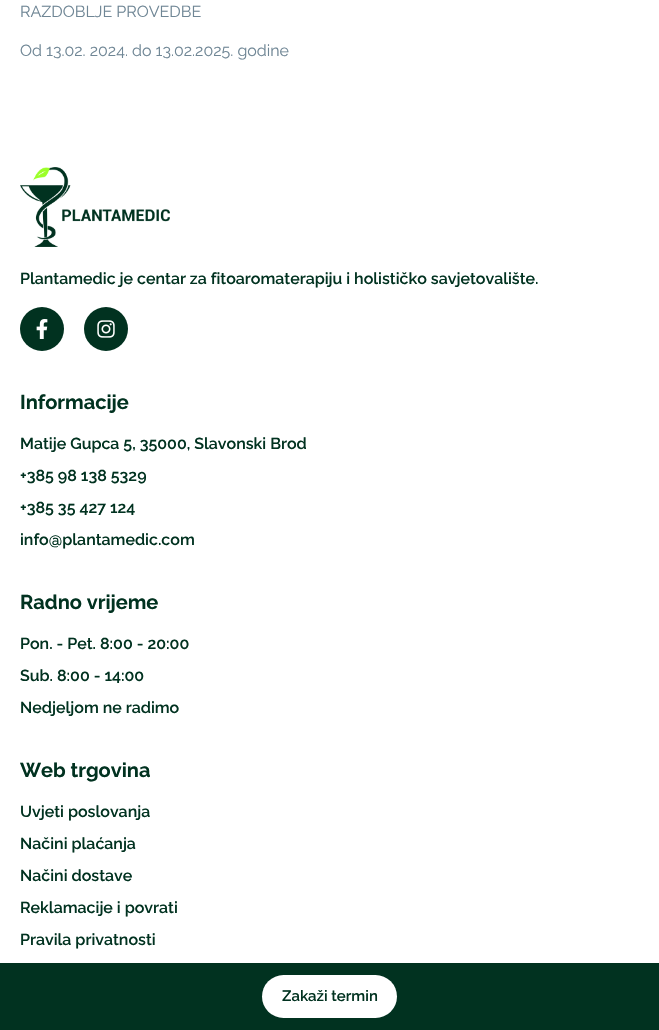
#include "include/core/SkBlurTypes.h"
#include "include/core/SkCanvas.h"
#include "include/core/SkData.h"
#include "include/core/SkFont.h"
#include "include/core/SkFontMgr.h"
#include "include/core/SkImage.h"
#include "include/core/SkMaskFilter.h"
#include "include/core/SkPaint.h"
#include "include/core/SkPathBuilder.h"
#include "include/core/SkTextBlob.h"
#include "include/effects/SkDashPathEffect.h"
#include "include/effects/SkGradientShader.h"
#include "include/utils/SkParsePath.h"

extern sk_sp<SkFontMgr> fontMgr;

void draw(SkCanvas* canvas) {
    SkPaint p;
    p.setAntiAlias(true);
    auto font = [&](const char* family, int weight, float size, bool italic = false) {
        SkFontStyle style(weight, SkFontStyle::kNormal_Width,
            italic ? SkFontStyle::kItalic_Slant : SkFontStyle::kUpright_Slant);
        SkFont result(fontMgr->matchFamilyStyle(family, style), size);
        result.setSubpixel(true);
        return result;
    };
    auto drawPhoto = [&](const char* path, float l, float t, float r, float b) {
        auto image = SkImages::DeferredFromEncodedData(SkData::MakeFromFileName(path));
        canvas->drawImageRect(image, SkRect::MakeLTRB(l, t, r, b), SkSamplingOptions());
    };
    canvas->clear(0xFFFFFFFF);
    auto font1 = font("Raleway", 400, 16);
    p.setColor(0xFF6F8695);
    canvas->drawString("RAZDOBLJE PROVEDBE", 20, 17, font1, p);
    canvas->drawString("Od 13.02. 2024. do 13.02.2025. godine", 20, 56, font1, p);
    drawPhoto("media/1.png", 20, 167, 170, 247);
    auto font2 = font("Raleway", 600, 16);
    p.setColor(0xFF013220);
    canvas->drawString("Plantamedic je centar za fitoaromaterapiju i holističko savjetovalište.", 20, 284, font2, p);
    canvas->drawCircle(42, 329, 22, p);
    drawPhoto("media/2.png", 36, 319, 48, 339);
    canvas->drawCircle(106, 329, 22, p);
    drawPhoto("media/3.png", 97, 320, 115, 338);
    auto font3 = font("Raleway", 700, 20);
    canvas->drawString("Informacije", 20, 409, font3, p);
    {
        const struct { const char* s; float x, y; } items[] = {
            {"Matije Gupca 5, 35000, Slavonski Brod", 20, 449},
            {"+385 98 138 5329", 20, 481},
            {"+385 35 427 124", 20, 513},
            {"info@plantamedic.com", 20, 545},
        };
        for (auto [s, x, y] : items) {
            canvas->drawString(s, x, y, font2, p);
        }
    }
    canvas->drawString("Radno vrijeme", 20, 609, font3, p);
    {
        const struct { const char* s; float x, y; } items[] = {
            {"Pon. - Pet. 8:00 - 20:00", 20, 649},
            {"Sub. 8:00 - 14:00", 20, 681},
            {"Nedjeljom ne radimo", 20, 713},
        };
        for (auto [s, x, y] : items) {
            canvas->drawString(s, x, y, font2, p);
        }
    }
    canvas->drawString("Web trgovina", 20, 777, font3, p);
    {
        const struct { const char* s; float x, y; } items[] = {
            {"Uvjeti poslovanja", 20, 817},
            {"Načini plaćanja", 20, 849},
            {"Načini dostave", 20, 881},
            {"Reklamacije i povrati", 20, 913},
            {"Pravila privatnosti", 20, 945},
        };
        for (auto [s, x, y] : items) {
            canvas->drawString(s, x, y, font2, p);
        }
    }
    canvas->drawRect(SkRect::MakeLTRB(0, 963, 659, 1030), p);
    p.setColor(0xFFFFFFFF);
    canvas->drawRoundRect(SkRect::MakeLTRB(262, 975, 397, 1018), 21.5f, 21.5f, p);
    auto font4 = font("Raleway", 600, 15);
    p.setColor(0xFF013220);
    canvas->drawString("Zakaži termin", 282, 1001, font4, p);
}
